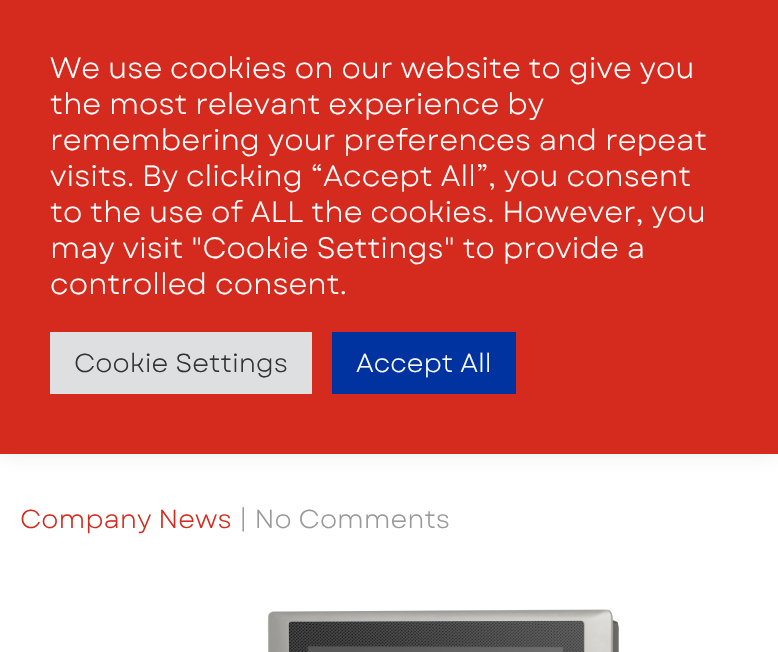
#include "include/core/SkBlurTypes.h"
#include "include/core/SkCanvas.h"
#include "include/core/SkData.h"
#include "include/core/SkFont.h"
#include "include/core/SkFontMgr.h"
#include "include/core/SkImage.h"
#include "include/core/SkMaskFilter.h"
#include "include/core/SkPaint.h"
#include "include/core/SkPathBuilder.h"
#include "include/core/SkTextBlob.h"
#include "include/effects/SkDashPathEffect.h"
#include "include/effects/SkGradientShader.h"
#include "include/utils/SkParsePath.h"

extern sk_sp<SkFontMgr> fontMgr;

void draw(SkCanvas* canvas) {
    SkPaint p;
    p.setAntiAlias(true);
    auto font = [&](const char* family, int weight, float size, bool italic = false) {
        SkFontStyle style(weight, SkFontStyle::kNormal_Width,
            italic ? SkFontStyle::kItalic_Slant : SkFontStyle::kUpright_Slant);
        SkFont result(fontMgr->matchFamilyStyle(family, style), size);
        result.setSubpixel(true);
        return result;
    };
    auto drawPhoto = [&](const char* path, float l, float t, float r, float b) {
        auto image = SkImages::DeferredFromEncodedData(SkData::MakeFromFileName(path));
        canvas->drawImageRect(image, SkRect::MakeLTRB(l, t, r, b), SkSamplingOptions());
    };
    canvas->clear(0xFFFFFFFF);
    p.setColor(0x4DACABAB);
    p.setMaskFilter(SkMaskFilter::MakeBlur(kNormal_SkBlurStyle, 10));
    canvas->drawRect(SkRect::MakeLTRB(0, -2, 778, 452), p);
    p.setMaskFilter(nullptr);
    p.setColor(0xFFD52B1E);
    canvas->drawRect(SkRect::MakeLTRB(0, 0, 778, 454), p);
    auto font1 = font("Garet", 400, 29.3f);
    p.setColor(0xFFFFFFFF);
    {
        const struct { const char* s; float x, y; } items[] = {
            {"We use cookies on our website to give you", 50, 78},
            {"the most relevant experience by", 50, 114},
            {"remembering your preferences and repeat", 50, 150},
            {"visits. By clicking “Accept All”, you consent", 50, 186},
            {"to the use of ALL the cookies. However, you", 50, 222},
            {"may visit \"Cookie Settings\" to provide a", 50, 258},
            {"controlled consent.", 50, 294},
        };
        for (auto [s, x, y] : items) {
            canvas->drawString(s, x, y, font1, p);
        }
    }
    p.setColor(0xFFDEDFE0);
    canvas->drawRect(SkRect::MakeLTRB(50, 332, 312, 394), p);
    auto font2 = font("Garet", 400, 26);
    p.setColor(0xFF333333);
    canvas->drawString("Cookie Settings", 74, 372, font2, p);
    p.setColor(0xFF0032A0);
    canvas->drawRect(SkRect::MakeLTRB(332, 332, 516, 394), p);
    p.setColor(0xFFFFFFFF);
    canvas->drawString("Accept All", 356, 372, font2, p);
    p.setColor(0xFFD52B1E);
    canvas->drawString("Company News", 20, 528, font2, p);
    p.setColor(0xFF999999);
    canvas->drawString("| No Comments", 239, 528, font2, p);
    drawPhoto("media/1.png", 267, 609, 619, 652);
}
